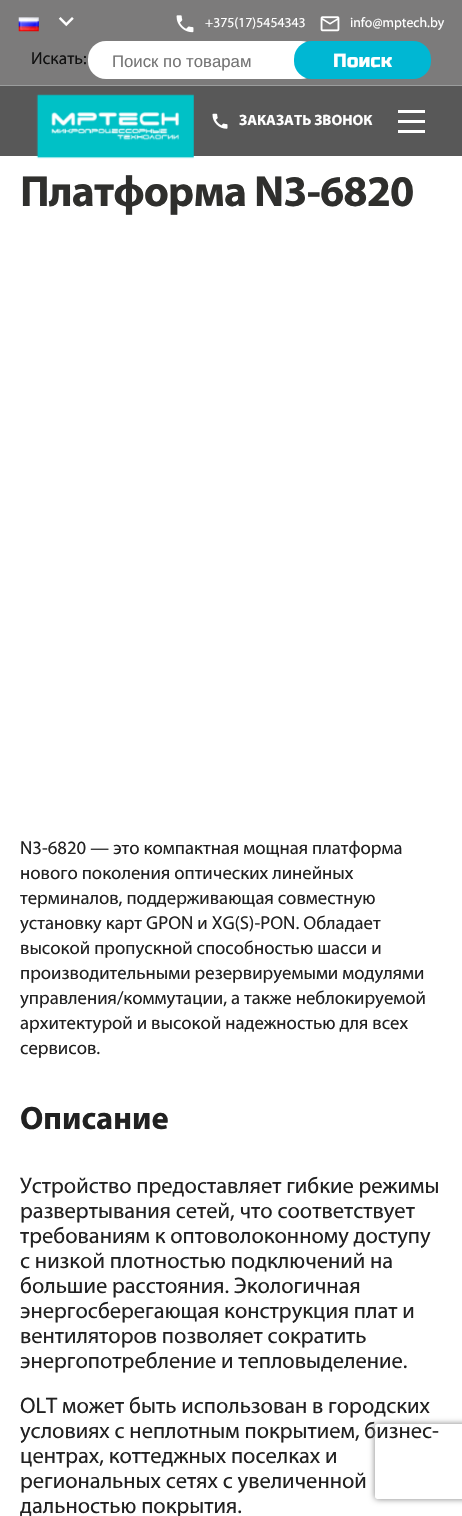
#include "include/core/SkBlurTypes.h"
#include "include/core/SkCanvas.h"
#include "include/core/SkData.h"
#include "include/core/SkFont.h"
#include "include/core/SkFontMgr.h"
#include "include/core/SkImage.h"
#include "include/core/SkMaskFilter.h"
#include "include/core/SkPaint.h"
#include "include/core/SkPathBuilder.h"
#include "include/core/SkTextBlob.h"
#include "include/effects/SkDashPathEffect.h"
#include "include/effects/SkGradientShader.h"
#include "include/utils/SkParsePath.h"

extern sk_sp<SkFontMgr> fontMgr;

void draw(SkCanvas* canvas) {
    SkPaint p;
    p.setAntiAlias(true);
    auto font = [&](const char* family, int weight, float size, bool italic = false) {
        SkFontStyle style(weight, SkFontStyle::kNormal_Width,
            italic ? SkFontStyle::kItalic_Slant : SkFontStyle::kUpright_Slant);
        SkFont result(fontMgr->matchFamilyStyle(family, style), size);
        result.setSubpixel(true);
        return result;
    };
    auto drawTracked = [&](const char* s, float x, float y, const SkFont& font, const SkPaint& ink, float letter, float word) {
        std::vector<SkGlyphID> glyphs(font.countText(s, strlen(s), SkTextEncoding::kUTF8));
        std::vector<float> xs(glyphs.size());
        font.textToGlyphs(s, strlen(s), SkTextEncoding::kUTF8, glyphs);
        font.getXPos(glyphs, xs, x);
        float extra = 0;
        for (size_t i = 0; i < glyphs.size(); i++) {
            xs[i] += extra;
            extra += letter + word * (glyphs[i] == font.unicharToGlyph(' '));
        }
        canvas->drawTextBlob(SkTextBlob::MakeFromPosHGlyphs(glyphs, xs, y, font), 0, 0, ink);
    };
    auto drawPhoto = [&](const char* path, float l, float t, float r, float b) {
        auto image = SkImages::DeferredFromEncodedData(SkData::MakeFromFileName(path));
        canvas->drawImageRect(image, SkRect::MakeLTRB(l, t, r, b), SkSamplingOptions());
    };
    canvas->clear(0xFFFFFFFF);
    p.setColor(0xFF7C7B7B);
    canvas->drawRect(SkRect::MakeLTRB(0, 0, 462, 85), p);
    p.setColor(0xFF9B9D9D);
    canvas->drawRect(SkRect::MakeLTRB(0, 85, 462, 86), p);
    drawPhoto("media/1.png", 18, 17, 39, 32);
    drawPhoto("media/2.png", 58, 17, 74, 27);
    drawPhoto("media/3.png", 176, 15, 194, 33);
    auto font1 = font("Myriad", 400, 13.75f);
    p.setColor(0xFFFFFFFF);
    canvas->drawString("+375(17)5454343", 205, 27, font1, p);
    drawPhoto("media/4.png", 320, 16, 340, 32);
    canvas->drawString("info@mptech.by", 350, 27, font1, p);
    auto font2 = font("Myriad", 400, 17.5f);
    p.setColor(0xFF101010);
    canvas->drawString("Искать:", 31, 64, font2, p);
    p.setColor(0xFFFFFFFF);
    canvas->drawRoundRect(SkRect::MakeLTRB(88, 41, 319, 79), 18, 18, p);
    auto font3 = font("Liberation Sans", 400, 16.75f);
    p.setColor(0xFF757575);
    canvas->drawString("Поиск по товарам", 112, 67, font3, p);
    p.setColor(0xFF00B7D3);
    canvas->drawRoundRect(SkRect::MakeLTRB(294, 41, 431, 79), 18, 18, p);
    auto font4 = font("Russo One", 400, 18.75f);
    p.setColor(0xFFFFFFFF);
    canvas->drawString("Поиск", 333, 67, font4, p);
    p.setColor(0xFF585858);
    canvas->drawRect(SkRect::MakeLTRB(0, 86, 462, 156), p);
    drawPhoto("media/5.png", 36, 94, 194, 159);
    drawPhoto("media/6.png", 212, 113, 228, 129);
    auto font5 = font("Myriad", 700, 15);
    p.setColor(0xFFFFFFFF);
    canvas->drawString("ЗАКАЗАТЬ ЗВОНОК", 239, 125, font5, p);
    {
        const struct { float l, t, r, b; SkColor color; } items[] = {
            {398, 110, 425, 113, 0xFFFFFFFF},
            {398, 120, 425, 123, 0xFFFFFFFF},
            {398, 130, 425, 133, 0xFFFFFFFF},
        };
        for (auto [l, t, r, b, color] : items) {
            p.setColor(color);
            canvas->drawRect(SkRect::MakeLTRB(l, t, r, b), p);
        }
    }
    auto font6 = font("Myriad", 700, 43.75f);
    p.setColor(0xFF2F2F2D);
    drawTracked("Платформа N3-6820", 20, 206, font6, p, -0.9f, 0);
    auto font7 = font("Myriad", 400, 18.75f);
    p.setColor(0xFF212121);
    {
        const struct { const char* s; float x, y; } items[] = {
            {"N3-6820 — это компактная мощная платформа", 20, 854},
            {"нового поколения оптических линейных", 20, 879},
            {"терминалов, поддерживающая совместную", 20, 904},
            {"установку карт GPON и XG(S)-PON. Обладает", 20, 929},
            {"высокой пропускной способностью шасси и", 20, 954},
            {"производительными резервируемыми модулями", 20, 979},
            {"управления/коммутации, а также неблокируемой", 20, 1004},
            {"архитектурой и высокой надежностью для всех", 20, 1029},
            {"сервисов.", 20, 1054},
        };
        for (auto [s, x, y] : items) {
            canvas->drawString(s, x, y, font7, p);
        }
    }
    auto font8 = font("Myriad", 700, 32.5f);
    canvas->drawString("Описание", 20, 1129, font8, p);
    auto font9 = font("Myriad", 400, 22.5f);
    {
        const struct { const char* s; float x, y; } items[] = {
            {"Устройство предоставляет гибкие режимы", 20, 1193},
            {"развертывания сетей, что соответствует", 20, 1218},
            {"требованиям к оптоволоконному доступу", 20, 1243},
            {"с низкой плотностью подключений на", 20, 1268},
            {"большие расстояния. Экологичная", 20, 1293},
            {"энергосберегающая конструкция плат и", 20, 1318},
            {"вентиляторов позволяет сократить", 20, 1343},
            {"энергопотребление и тепловыделение.", 20, 1368},
            {"OLT может быть использован в городских", 20, 1413},
            {"условиях с неплотным покрытием, бизнес-", 20, 1438},
            {"центрах, коттеджных поселках и", 20, 1463},
            {"региональных сетях с увеличенной", 20, 1488},
            {"дальностью покрытия.", 20, 1513},
        };
        for (auto [s, x, y] : items) {
            canvas->drawString(s, x, y, font9, p);
        }
    }
    canvas->save();
    canvas->clipPath(SkPathBuilder(SkPathFillType::kEvenOdd).moveTo(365, 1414).lineTo(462, 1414).lineTo(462, 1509).lineTo(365, 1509).close().moveTo(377.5f, 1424).lineTo(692.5f, 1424).cubicTo(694, 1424, 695, 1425, 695, 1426.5f).lineTo(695, 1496.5f).cubicTo(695, 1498, 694, 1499, 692.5f, 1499).lineTo(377.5f, 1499).cubicTo(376, 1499, 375, 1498, 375, 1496.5f).lineTo(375, 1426.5f).cubicTo(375, 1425, 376, 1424, 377.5f, 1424).close().detach(), true);
    p.setColor(0xFF808080);
    p.setMaskFilter(SkMaskFilter::MakeBlur(kNormal_SkBlurStyle, 3));
    canvas->drawRoundRect(SkRect::MakeLTRB(375, 1424, 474, 1499), 2.5f, 2.5f, p);
    p.setMaskFilter(nullptr);
    canvas->restore();
}
